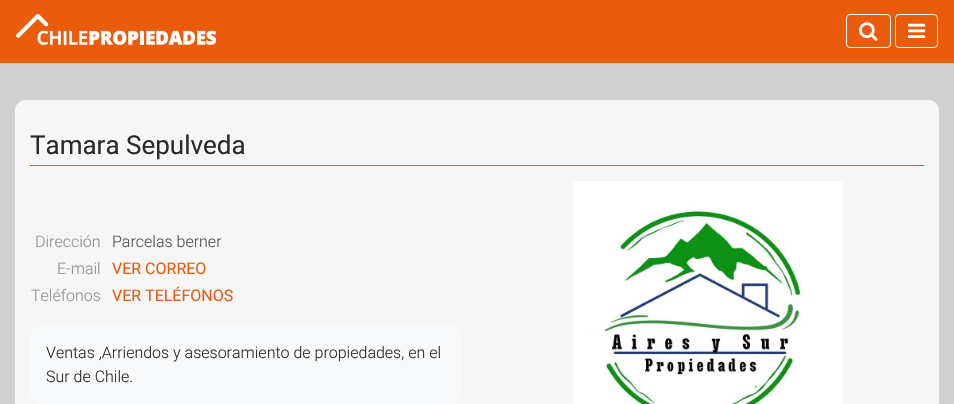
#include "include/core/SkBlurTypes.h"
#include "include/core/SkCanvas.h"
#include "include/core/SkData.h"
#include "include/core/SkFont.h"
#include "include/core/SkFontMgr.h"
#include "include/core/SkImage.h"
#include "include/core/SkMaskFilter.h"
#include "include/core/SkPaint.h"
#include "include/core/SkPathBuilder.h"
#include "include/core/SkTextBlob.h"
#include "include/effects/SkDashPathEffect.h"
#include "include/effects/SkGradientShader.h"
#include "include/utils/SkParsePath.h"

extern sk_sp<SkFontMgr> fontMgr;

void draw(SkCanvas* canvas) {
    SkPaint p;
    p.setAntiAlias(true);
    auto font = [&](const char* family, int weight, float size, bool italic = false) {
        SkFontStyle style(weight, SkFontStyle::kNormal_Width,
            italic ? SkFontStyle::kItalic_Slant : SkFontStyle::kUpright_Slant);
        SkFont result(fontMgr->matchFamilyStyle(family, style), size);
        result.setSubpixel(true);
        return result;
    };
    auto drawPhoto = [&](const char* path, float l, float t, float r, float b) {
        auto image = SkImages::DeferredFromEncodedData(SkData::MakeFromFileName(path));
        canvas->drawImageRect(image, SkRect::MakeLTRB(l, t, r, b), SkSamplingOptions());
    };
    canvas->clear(0xFFD0D0D0);
    p.setColor(0xFFEA5B0C);
    canvas->drawRect(SkRect::MakeLTRB(0, 0, 954, 63), p);
    drawPhoto("media/1.png", 16, 14, 216, 45);
    p.setStyle(SkPaint::kStroke_Style);
    p.setStrokeWidth(1);
    p.setColor(0xFFFFFFFF);
    canvas->drawRoundRect(SkRect::MakeLTRB(846.5f, 14.5f, 890.5f, 47.5f), 3.5f, 3.5f, p);
    drawPhoto("media/2.png", 859, 22, 878, 41);
    canvas->drawRoundRect(SkRect::MakeLTRB(895.5f, 14.5f, 937.5f, 47.5f), 3.5f, 3.5f, p);
    drawPhoto("media/3.png", 908, 23, 926, 38);
    p.setStyle(SkPaint::kFill_Style);
    p.setColor(0xFFF6F6F6);
    canvas->drawRoundRect(SkRect::MakeLTRB(15, 100, 939, 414), 10, 10, p);
    p.setColor(0xFFEA5B0C);
    canvas->drawRect(SkRect::MakeLTRB(30, 165, 924, 166), p);
    auto font1 = font("Roboto", 400, 26);
    p.setColor(0xFF2A2A2A);
    canvas->drawString("Tamara Sepulveda", 30, 154, font1, p);
    auto font2 = font("Roboto", 300, 16);
    p.setColor(0xFF909090);
    canvas->drawString("Dirección", 35, 247, font2, p);
    p.setColor(0xFF505050);
    canvas->drawString("Parcelas berner", 112, 247, font2, p);
    p.setColor(0xFF909090);
    canvas->drawString("E-mail", 57, 274, font2, p);
    auto font3 = font("Roboto", 400, 16);
    p.setColor(0xFFEA5B0C);
    canvas->drawString("VER CORREO", 112, 274, font3, p);
    p.setColor(0xFF909090);
    canvas->drawString("Teléfonos", 31, 301, font2, p);
    p.setColor(0xFFEA5B0C);
    canvas->drawString("VER TELÉFONOS", 112, 301, font3, p);
    p.setColor(0xFFF8F9FA);
    canvas->drawRoundRect(SkRect::MakeLTRB(30, 325, 462, 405), 10, 10, p);
    p.setColor(0xFF2A2A2A);
    canvas->drawString("Ventas ,Arriendos y asesoramiento de propiedades, en el", 46, 358, font2, p);
    canvas->drawString("Sur de Chile.", 46, 382, font2, p);
    drawPhoto("media/4.png", 573, 181, 843, 404);
}
